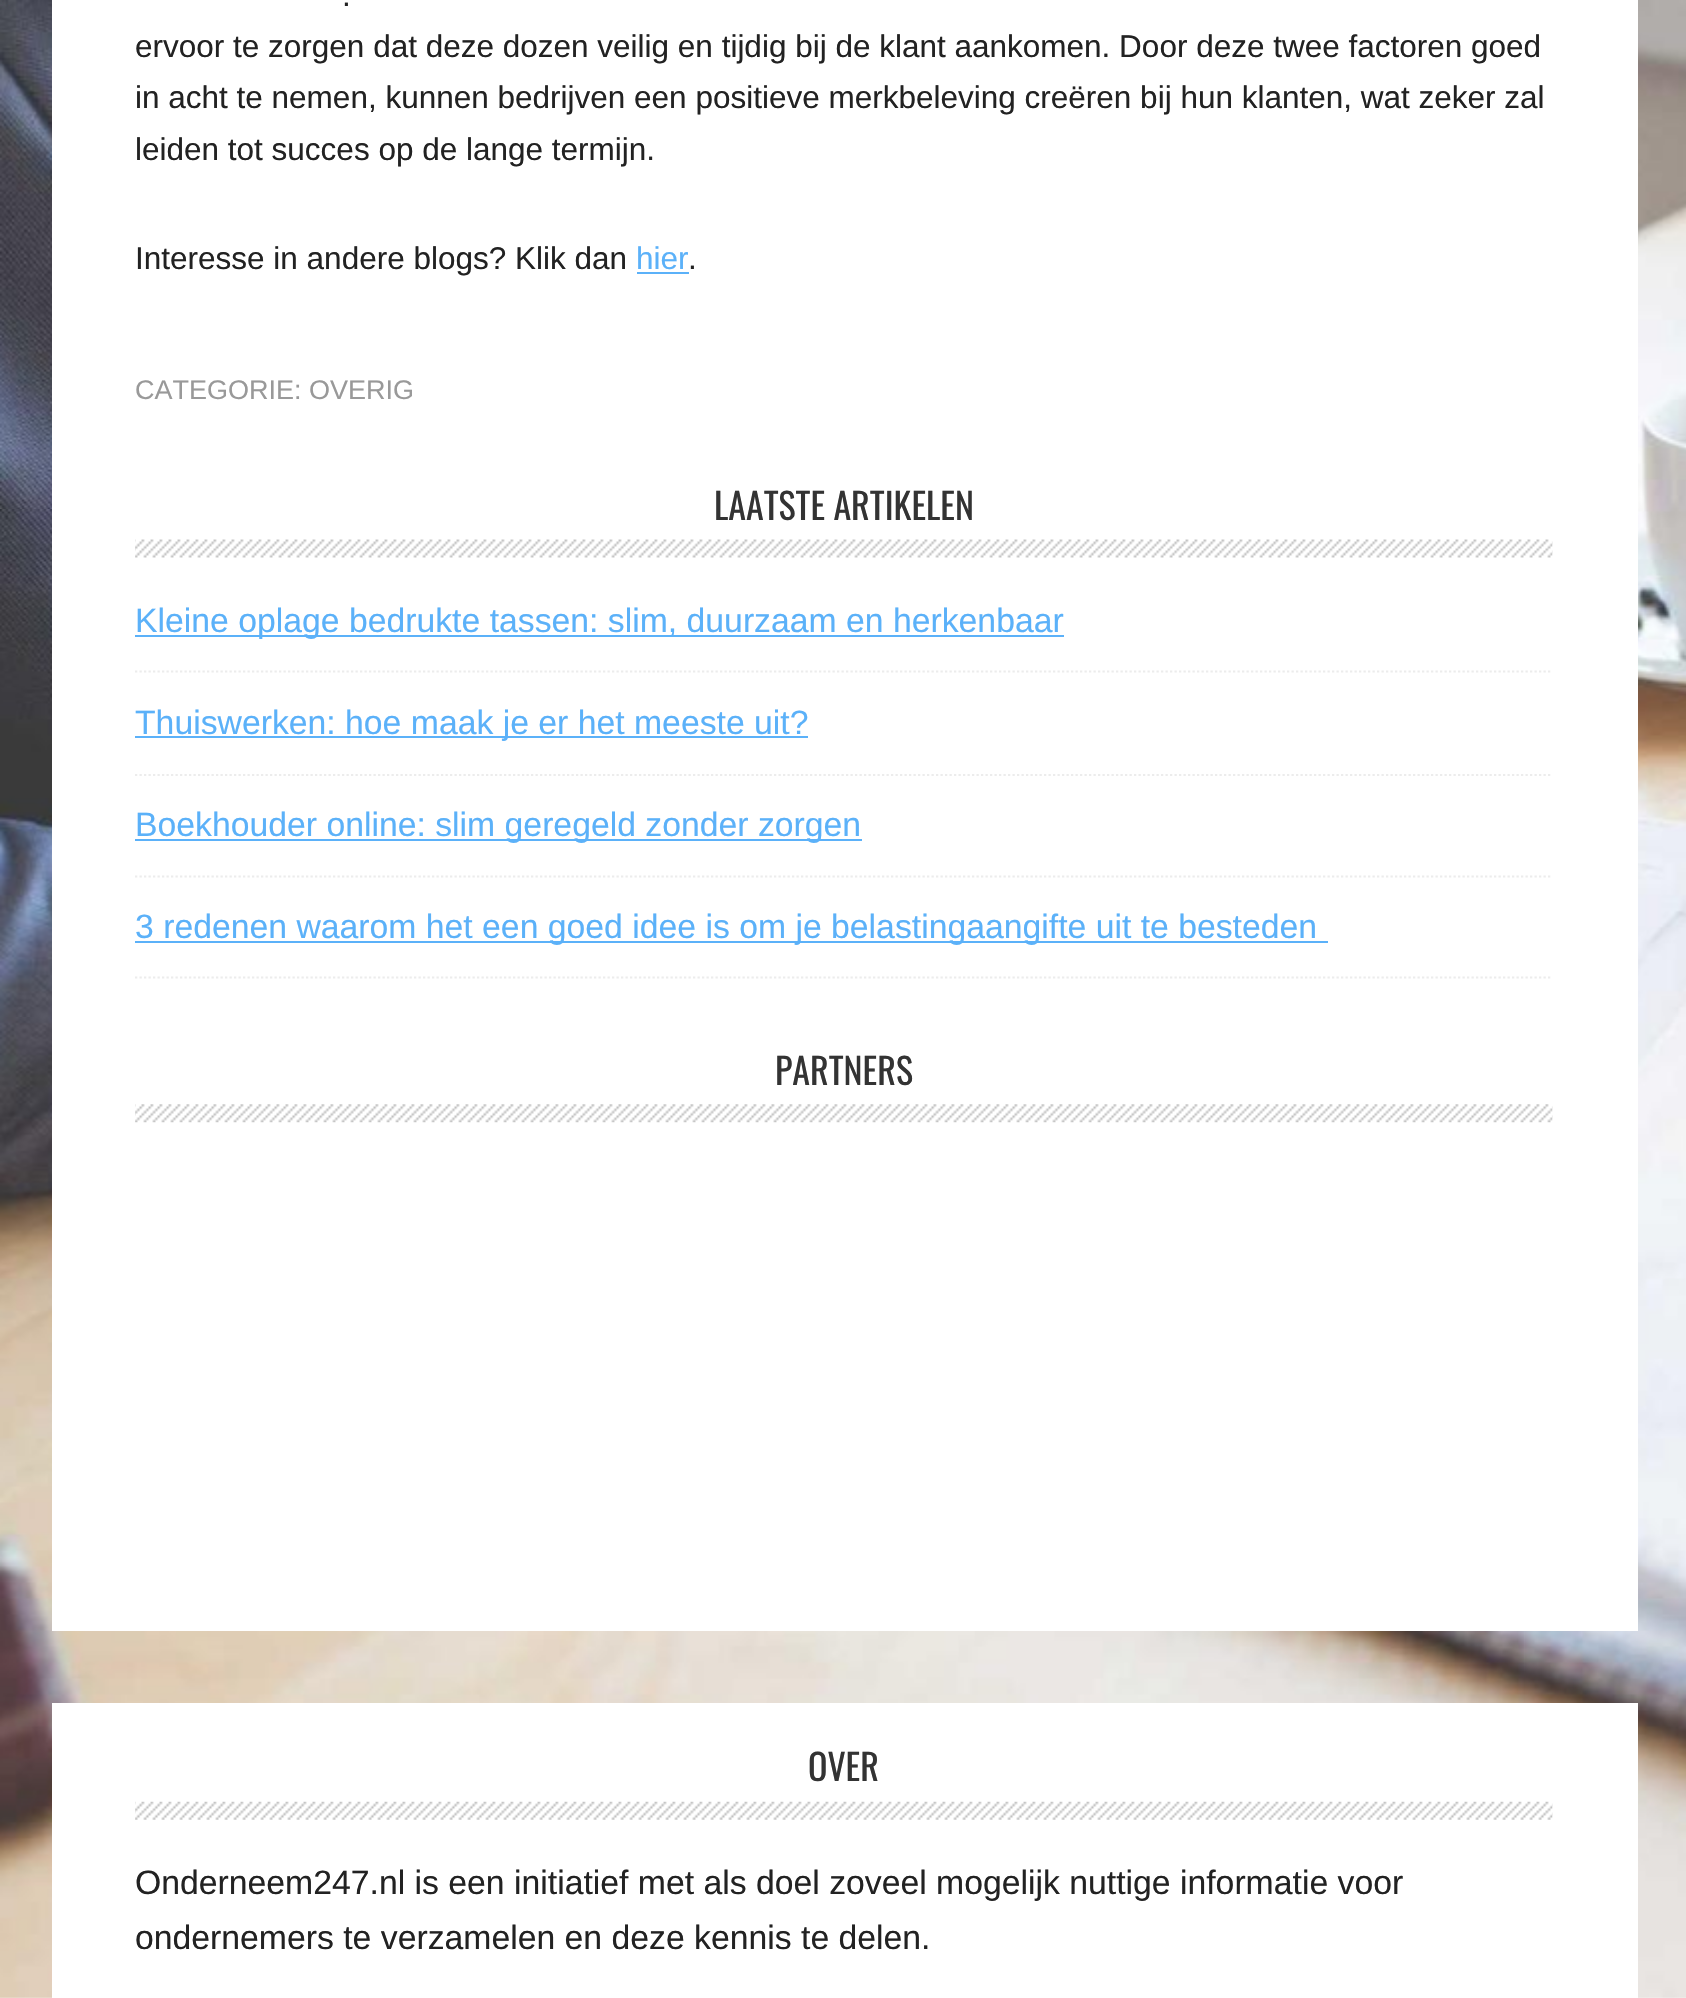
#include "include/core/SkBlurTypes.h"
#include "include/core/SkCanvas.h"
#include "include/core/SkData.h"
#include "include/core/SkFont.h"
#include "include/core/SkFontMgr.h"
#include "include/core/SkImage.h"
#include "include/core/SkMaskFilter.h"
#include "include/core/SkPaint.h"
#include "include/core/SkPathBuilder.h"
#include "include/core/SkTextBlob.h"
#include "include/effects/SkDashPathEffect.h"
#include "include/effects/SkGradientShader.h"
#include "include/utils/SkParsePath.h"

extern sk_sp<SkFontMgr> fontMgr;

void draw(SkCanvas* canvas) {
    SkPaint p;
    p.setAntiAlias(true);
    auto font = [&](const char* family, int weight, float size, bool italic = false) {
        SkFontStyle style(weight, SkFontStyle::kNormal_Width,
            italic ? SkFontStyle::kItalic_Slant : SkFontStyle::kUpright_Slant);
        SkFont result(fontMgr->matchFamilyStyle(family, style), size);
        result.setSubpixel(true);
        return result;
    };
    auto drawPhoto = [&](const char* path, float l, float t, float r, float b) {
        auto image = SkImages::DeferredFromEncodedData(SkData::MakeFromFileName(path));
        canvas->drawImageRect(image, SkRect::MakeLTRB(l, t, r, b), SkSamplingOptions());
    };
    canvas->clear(0xFFFFFFFF);
    drawPhoto("media/1.png", 0, 0, 1686, 1998);
    p.setColor(0xFFFFFFFF);
    canvas->drawRect(SkRect::MakeLTRB(52, 0, 1638, 1631), p);
    auto font1 = font("Liberation Sans", 400, 31.5f);
    p.setColor(0xFF222222);
    {
        const struct { const char* s; float x, y; } items[] = {
            {".", 342, 6},
            {"ervoor te zorgen dat deze dozen veilig en tijdig bij de klant aankomen. Door deze twee factoren goed", 135, 57},
            {"in acht te nemen, kunnen bedrijven een positieve merkbeleving creëren bij hun klanten, wat zeker zal", 135, 108},
            {"leiden tot succes op de lange termijn.", 135, 160},
            {"Interesse in andere blogs? Klik dan", 135, 269},
        };
        for (auto [s, x, y] : items) {
            canvas->drawString(s, x, y, font1, p);
        }
    }
    p.setColor(0xFF5BB1F9);
    canvas->drawString("hier", 636, 269, font1, p);
    canvas->drawRect(SkRect::MakeLTRB(637, 272, 689, 274), p);
    p.setColor(0xFF222222);
    canvas->drawString(".", 688, 269, font1, p);
    auto font2 = font("Liberation Sans", 400, 27);
    p.setColor(0xFF999999);
    canvas->drawString("CATEGORIE: OVERIG", 135, 399, font2, p);
    drawPhoto("media/2.png", 135, 539, 1553, 558);
    auto font3 = font("Oswald", 400, 36);
    p.setColor(0xFF333333);
    canvas->drawString("LAATSTE ARTIKELEN", 714, 520, font3, p);
    p.setStyle(SkPaint::kStroke_Style);
    p.setStrokeWidth(2.2f);
    p.setColor(0xFFECECEC);
    p.setPathEffect(SkDashPathEffect::Make({{2.25f, 2.25f}}, 0));
    canvas->drawPath(SkPathBuilder().moveTo(135, 671.5f).lineTo(1552.5f, 671.5f).detach(), p);
    p.setPathEffect(nullptr);
    p.setStyle(SkPaint::kFill_Style);
    p.setColor(0xFF5BB1F9);
    canvas->drawRect(SkRect::MakeLTRB(135, 635, 1064, 637), p);
    auto font4 = font("Liberation Sans", 400, 33.75f);
    canvas->drawString("Kleine oplage bedrukte tassen: slim, duurzaam en herkenbaar", 135, 632, font4, p);
    p.setStyle(SkPaint::kStroke_Style);
    p.setColor(0xFFECECEC);
    p.setPathEffect(SkDashPathEffect::Make({{2.25f, 2.25f}}, 0));
    canvas->drawPath(SkPathBuilder().moveTo(135, 775).lineTo(1552.5f, 775).detach(), p);
    p.setPathEffect(nullptr);
    p.setStyle(SkPaint::kFill_Style);
    p.setColor(0xFF5BB1F9);
    canvas->drawRect(SkRect::MakeLTRB(135, 736, 808, 738), p);
    canvas->drawString("Thuiswerken: hoe maak je er het meeste uit?", 135, 734, font4, p);
    p.setStyle(SkPaint::kStroke_Style);
    p.setColor(0xFFECECEC);
    p.setPathEffect(SkDashPathEffect::Make({{2.25f, 2.25f}}, 0));
    canvas->drawPath(SkPathBuilder().moveTo(135, 876.5f).lineTo(1552.5f, 876.5f).detach(), p);
    p.setPathEffect(nullptr);
    p.setStyle(SkPaint::kFill_Style);
    p.setColor(0xFF5BB1F9);
    canvas->drawRect(SkRect::MakeLTRB(135, 839, 862, 841), p);
    canvas->drawString("Boekhouder online: slim geregeld zonder zorgen", 135, 836, font4, p);
    p.setStyle(SkPaint::kStroke_Style);
    p.setColor(0xFFECECEC);
    p.setPathEffect(SkDashPathEffect::Make({{2.25f, 2.25f}}, 0));
    canvas->drawPath(SkPathBuilder().moveTo(135, 977.5f).lineTo(1552.5f, 977.5f).detach(), p);
    p.setPathEffect(nullptr);
    p.setStyle(SkPaint::kFill_Style);
    p.setColor(0xFF5BB1F9);
    canvas->drawRect(SkRect::MakeLTRB(135, 941, 1328, 943), p);
    canvas->drawString("3 redenen waarom het een goed idee is om je belastingaangifte uit te besteden", 135, 938, font4, p);
    drawPhoto("media/3.png", 135, 1104, 1553, 1123);
    p.setColor(0xFF333333);
    canvas->drawString("PARTNERS", 775, 1085, font3, p);
    p.setColor(0xFFFFFFFF);
    canvas->drawRect(SkRect::MakeLTRB(52, 1703, 1638, 1998), p);
    drawPhoto("media/4.png", 135, 1801, 1553, 1820);
    p.setColor(0xFF333333);
    canvas->drawString("OVER", 808, 1781, font3, p);
    p.setColor(0xFF222222);
    canvas->drawString("Onderneem247.nl is een initiatief met als doel zoveel mogelijk nuttige informatie voor", 135, 1894, font4, p);
    canvas->drawString("ondernemers te verzamelen en deze kennis te delen.", 135, 1949, font4, p);
}
